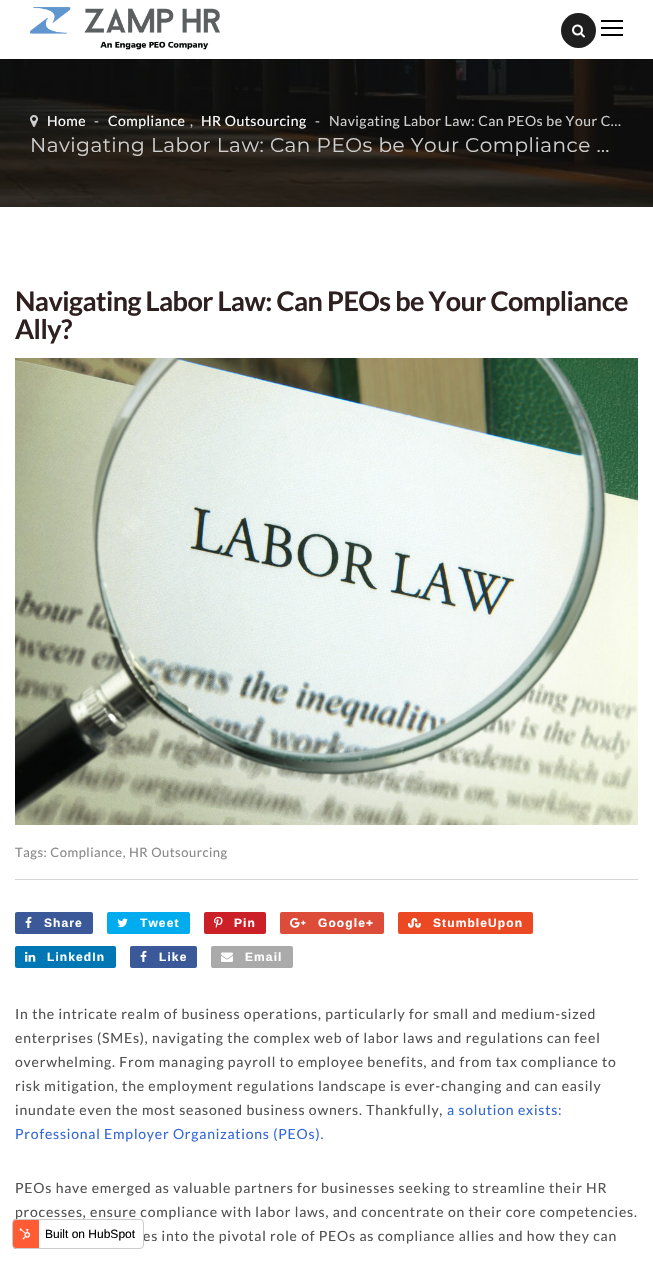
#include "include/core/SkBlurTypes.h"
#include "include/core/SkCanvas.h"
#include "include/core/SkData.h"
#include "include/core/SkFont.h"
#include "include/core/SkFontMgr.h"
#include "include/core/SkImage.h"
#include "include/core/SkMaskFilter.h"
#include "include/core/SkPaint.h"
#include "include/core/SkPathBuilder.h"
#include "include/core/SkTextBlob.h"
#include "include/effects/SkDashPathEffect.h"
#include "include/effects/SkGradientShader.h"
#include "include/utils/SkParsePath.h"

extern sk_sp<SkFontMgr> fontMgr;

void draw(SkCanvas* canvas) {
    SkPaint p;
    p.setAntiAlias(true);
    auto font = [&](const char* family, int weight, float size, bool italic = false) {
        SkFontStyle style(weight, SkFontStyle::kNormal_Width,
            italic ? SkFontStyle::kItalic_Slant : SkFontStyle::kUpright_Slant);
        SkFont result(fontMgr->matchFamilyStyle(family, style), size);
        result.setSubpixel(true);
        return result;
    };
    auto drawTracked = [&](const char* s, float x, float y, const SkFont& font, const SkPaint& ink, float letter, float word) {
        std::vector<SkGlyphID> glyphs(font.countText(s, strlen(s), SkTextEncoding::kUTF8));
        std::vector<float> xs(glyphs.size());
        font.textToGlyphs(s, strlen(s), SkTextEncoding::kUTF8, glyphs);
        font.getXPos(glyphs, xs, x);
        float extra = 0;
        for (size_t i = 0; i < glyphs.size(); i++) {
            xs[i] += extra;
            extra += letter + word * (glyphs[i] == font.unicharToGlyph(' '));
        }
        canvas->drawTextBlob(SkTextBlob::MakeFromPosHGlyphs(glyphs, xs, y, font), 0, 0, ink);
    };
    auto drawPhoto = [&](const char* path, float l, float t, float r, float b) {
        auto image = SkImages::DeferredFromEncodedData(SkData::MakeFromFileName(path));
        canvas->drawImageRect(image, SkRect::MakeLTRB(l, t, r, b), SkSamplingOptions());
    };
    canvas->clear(0xFFFFFFFF);
    drawPhoto("media/1.png", 30, 7, 220, 50);
    {
        const struct { float l, t, r, b; SkColor color; } items[] = {
            {601, 20, 623, 22, 0xFF000000},
            {601, 27, 623, 29, 0xFF000000},
            {601, 34, 623, 36, 0xFF000000},
        };
        for (auto [l, t, r, b, color] : items) {
            p.setColor(color);
            canvas->drawRect(SkRect::MakeLTRB(l, t, r, b), p);
        }
    }
    p.setColor(0xFF1F1F1F);
    canvas->drawCircle(578.5f, 30.5f, 17.5f, p);
    drawPhoto("media/2.png", 572, 24, 585, 38);
    drawPhoto("media/3.png", 0, 59, 653, 207);
    drawPhoto("media/4.png", 30, 115, 38, 127);
    auto font1 = font("Lato", 400, 14);
    p.setColor(0xFFFFFFFF);
    drawTracked("Home", 47, 126, font1, p, 0.48f, 0);
    p.setColor(0xFFCECECE);
    drawTracked("-", 94, 126, font1, p, 0.48f, 0);
    p.setColor(0xFFFFFFFF);
    drawTracked("Compliance", 108, 126, font1, p, 0.48f, 0);
    drawTracked("HR Outsourcing", 201, 126, font1, p, 0.48f, 0);
    p.setColor(0xFFCECECE);
    {
        const struct { const char* s; float x, y; } items[] = {
            {"-", 315, 126},
            {"Navigating Labor Law: Can PEOs be Your C…", 329, 126},
            {",", 190, 126},
        };
        for (auto [s, x, y] : items) {
            drawTracked(s, x, y, font1, p, 0.48f, 0);
        }
    }
    auto font2 = font("Montserrat", 400, 20);
    drawTracked("Navigating Labor Law: Can PEOs be Your Compliance …", 30, 152, font2, p, 0.48f, 0);
    auto font3 = font("Lato", 700, 27);
    p.setColor(0xFF2F2020);
    drawTracked("Navigating Labor Law: Can PEOs be Your Compliance", 15, 311, font3, p, -0.55f, 0);
    drawTracked("Ally?", 15, 339, font3, p, -0.55f, 0);
    drawPhoto("media/5.png", 15, 358, 638, 825);
    p.setColor(0xFFD4D4D4);
    canvas->drawRect(SkRect::MakeLTRB(15, 879, 638, 880), p);
    auto font4 = font("Lato", 400, 13);
    p.setColor(0xFF898989);
    drawTracked("Tags: Compliance, HR Outsourcing", 15, 857, font4, p, 0.5f, 0);
    p.setColor(0xFF3B5998);
    canvas->drawRoundRect(SkRect::MakeLTRB(15, 912, 93, 934), 2, 2, p);
    drawPhoto("media/6.png", 25, 916, 32, 928);
    auto font5 = font("Liberation Sans", 700, 12);
    p.setColor(0xFFFFFFFF);
    drawTracked("Share", 44, 927, font5, p, 1.1f, 0);
    p.setColor(0xFF00ACED);
    canvas->drawRoundRect(SkRect::MakeLTRB(107, 912, 190, 934), 2, 2, p);
    drawPhoto("media/7.png", 117, 918, 128, 928);
    p.setColor(0xFFFFFFFF);
    drawTracked("Tweet", 140, 927, font5, p, 1.1f, 0);
    p.setColor(0xFFCB2027);
    canvas->drawRoundRect(SkRect::MakeLTRB(204, 912, 266, 934), 2, 2, p);
    drawPhoto("media/8.png", 214, 916, 223, 928);
    p.setColor(0xFFFFFFFF);
    drawTracked("Pin", 234, 927, font5, p, 1.1f, 0);
    p.setColor(0xFFDD4B39);
    canvas->drawRoundRect(SkRect::MakeLTRB(280, 912, 384, 934), 2, 2, p);
    drawPhoto("media/9.png", 290, 918, 306, 928);
    p.setColor(0xFFFFFFFF);
    drawTracked("Google+", 318, 927, font5, p, 1.1f, 0);
    p.setColor(0xFFEB4924);
    canvas->drawRoundRect(SkRect::MakeLTRB(398, 912, 533, 934), 2, 2, p);
    drawPhoto("media/10.png", 408, 918, 421, 928);
    p.setColor(0xFFFFFFFF);
    drawTracked("StumbleUpon", 433, 927, font5, p, 1.1f, 0);
    p.setColor(0xFF0077B5);
    canvas->drawRoundRect(SkRect::MakeLTRB(15, 946, 116, 968), 2, 2, p);
    drawPhoto("media/11.png", 25, 951, 36, 962);
    p.setColor(0xFFFFFFFF);
    drawTracked("LinkedIn", 47, 961, font5, p, 1.1f, 0);
    p.setColor(0xFF3B5998);
    canvas->drawRoundRect(SkRect::MakeLTRB(130, 946, 197, 968), 2, 2, p);
    drawPhoto("media/6.png", 140, 950, 147, 962);
    p.setColor(0xFFFFFFFF);
    drawTracked("Like", 159, 961, font5, p, 1.1f, 0);
    p.setColor(0xFFAAAAAA);
    canvas->drawRoundRect(SkRect::MakeLTRB(211, 946, 293, 968), 2, 2, p);
    drawPhoto("media/12.png", 221, 952, 233, 962);
    p.setColor(0xFFFFFFFF);
    drawTracked("Email", 245, 961, font5, p, 1.1f, 0);
    p.setColor(0xFF515151);
    {
        const struct { const char* s; float x, y; } items[] = {
            {"In the intricate realm of business operations, particularly for small and medium-sized", 15, 1019},
            {"enterprises (SMEs), navigating the complex web of labor laws and regulations can feel", 15, 1043},
            {"overwhelming. From managing payroll to employee benefits, and from tax compliance to", 15, 1067},
            {"risk mitigation, the employment regulations landscape is ever-changing and can easily", 15, 1091},
            {"inundate even the most seasoned business owners. Thankfully,", 15, 1115},
        };
        for (auto [s, x, y] : items) {
            drawTracked(s, x, y, font1, p, 0.8f, 0);
        }
    }
    p.setColor(0xFF3367D6);
    drawTracked("a solution exists:", 447, 1115, font1, p, 0.8f, 0);
    drawTracked("Professional Employer Organizations (PEOs).", 15, 1139, font1, p, 0.8f, 0);
    p.setColor(0xFF515151);
    {
        const struct { const char* s; float x, y; } items[] = {
            {"PEOs have emerged as valuable partners for businesses seeking to streamline their HR", 15, 1193},
            {"processes, ensure compliance with labor laws, and concentrate on their core competencies.", 15, 1217},
            {"es into the pivotal role of PEOs as compliance allies and how they can", 143, 1241},
        };
        for (auto [s, x, y] : items) {
            drawTracked(s, x, y, font1, p, 0.8f, 0);
        }
    }
    canvas->save();
    canvas->clipPath(SkPathBuilder().moveTo(16, 1219).lineTo(140, 1219).cubicTo(142, 1219, 144, 1221, 144, 1223).lineTo(144, 1245).cubicTo(144, 1247, 142, 1249, 140, 1249).lineTo(16, 1249).cubicTo(14, 1249, 12, 1247, 12, 1245).lineTo(12, 1223).cubicTo(12, 1221, 14, 1219, 16, 1219).close().detach(), true);
    p.setColor(0xFFFF5C35);
    canvas->drawRect(SkRect::MakeLTRB(13, 1219, 39, 1249), p);
    canvas->restore();
    p.setStyle(SkPaint::kStroke_Style);
    p.setStrokeWidth(1);
    p.setColor(0xFFCCCCCC);
    canvas->drawRoundRect(SkRect::MakeLTRB(12.5f, 1219.5f, 143.5f, 1248.5f), 3.5f, 3.5f, p);
    drawPhoto("media/13.png", 19, 1228, 31, 1240);
    auto font6 = font("Liberation Sans", 400, 12);
    p.setStyle(SkPaint::kFill_Style);
    p.setColor(0xFF000000);
    canvas->drawString("Built on HubSpot", 45, 1238, font6, p);
}
